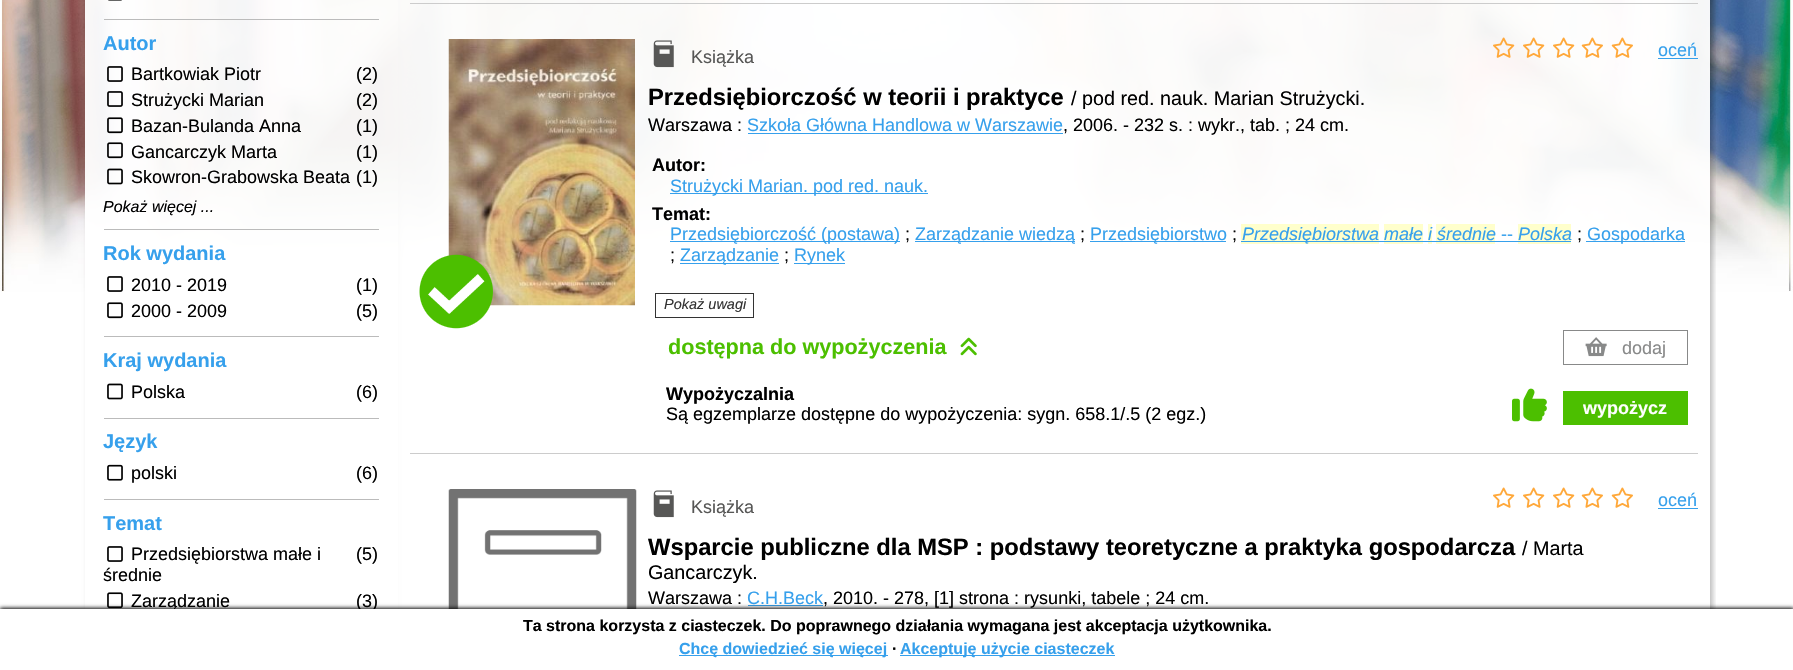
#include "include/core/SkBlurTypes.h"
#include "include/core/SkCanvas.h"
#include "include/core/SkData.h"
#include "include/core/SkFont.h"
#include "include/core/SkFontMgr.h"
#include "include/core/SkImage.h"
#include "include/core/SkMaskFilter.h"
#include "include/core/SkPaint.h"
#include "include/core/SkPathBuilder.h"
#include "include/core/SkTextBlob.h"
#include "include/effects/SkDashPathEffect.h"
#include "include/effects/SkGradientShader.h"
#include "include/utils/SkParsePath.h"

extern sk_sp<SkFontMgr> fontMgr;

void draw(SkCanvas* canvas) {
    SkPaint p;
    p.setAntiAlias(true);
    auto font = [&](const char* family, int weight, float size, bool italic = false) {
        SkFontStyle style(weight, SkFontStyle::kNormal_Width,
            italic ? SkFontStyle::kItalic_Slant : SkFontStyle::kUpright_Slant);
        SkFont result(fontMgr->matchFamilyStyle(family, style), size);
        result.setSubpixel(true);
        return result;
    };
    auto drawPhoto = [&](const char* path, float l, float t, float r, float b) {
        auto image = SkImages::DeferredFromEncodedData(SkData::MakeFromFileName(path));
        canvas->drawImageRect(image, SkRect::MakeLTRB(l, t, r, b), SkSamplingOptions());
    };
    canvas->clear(0xFFFFFFFF);
    drawPhoto("media/1.png", 0, 0, 1793, 292);
    canvas->save();
    canvas->clipPath(SkPathBuilder(SkPathFillType::kEvenOdd).moveTo(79, 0).lineTo(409, 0).lineTo(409, 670).lineTo(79, 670).close().moveTo(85, -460).lineTo(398, -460).lineTo(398, 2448).lineTo(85, 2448).close().detach(), true);
    p.setColor(0x40000000);
    p.setMaskFilter(SkMaskFilter::MakeBlur(kNormal_SkBlurStyle, 2.5f));
    canvas->drawRect(SkRect::MakeLTRB(88, -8, 400, 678), p);
    p.setMaskFilter(nullptr);
    canvas->restore();
    p.setColor(0xF2FFFFFF);
    canvas->drawRect(SkRect::MakeLTRB(85, 0, 398, 609), p);
    p.setColor(0xFFBBBBBB);
    canvas->drawRect(SkRect::MakeLTRB(104, 19, 379, 20), p);
    drawPhoto("media/2.png", 108, 0, 122, 1);
    canvas->drawRect(SkRect::MakeLTRB(104, 229, 379, 230), p);
    auto font1 = font("Liberation Sans", 700, 20);
    p.setColor(0xFF36A0EC);
    canvas->drawString("Autor", 103, 50, font1, p);
    drawPhoto("media/3.png", 107, 66, 123, 82);
    auto font2 = font("Liberation Sans", 400, 18);
    p.setColor(0xFF000000);
    canvas->drawString("Bartkowiak Piotr", 131, 80, font2, p);
    canvas->drawString("(2)", 356, 80, font2, p);
    drawPhoto("media/4.png", 107, 91, 123, 107);
    canvas->drawString("Strużycki Marian", 131, 106, font2, p);
    canvas->drawString("(2)", 356, 106, font2, p);
    drawPhoto("media/5.png", 107, 117, 123, 134);
    canvas->drawString("Bazan-Bulanda Anna", 131, 132, font2, p);
    canvas->drawString("(1)", 356, 132, font2, p);
    drawPhoto("media/6.png", 107, 142, 123, 159);
    canvas->drawString("Gancarczyk Marta", 131, 158, font2, p);
    canvas->drawString("(1)", 356, 158, font2, p);
    drawPhoto("media/7.png", 107, 168, 123, 185);
    canvas->drawString("Skowron-Grabowska Beata", 131, 183, font2, p);
    canvas->drawString("(1)", 356, 183, font2, p);
    auto font3 = font("Liberation Sans", 400, 16, true);
    canvas->drawString("Pokaż więcej ...", 103, 212, font3, p);
    p.setColor(0xFFBBBBBB);
    canvas->drawRect(SkRect::MakeLTRB(104, 336, 379, 337), p);
    p.setColor(0xFF36A0EC);
    canvas->drawString("Rok wydania", 103, 260, font1, p);
    drawPhoto("media/8.png", 107, 276, 123, 292);
    p.setColor(0xFF000000);
    canvas->drawString("2010 - 2019", 131, 291, font2, p);
    canvas->drawString("(1)", 356, 291, font2, p);
    drawPhoto("media/9.png", 107, 302, 123, 319);
    canvas->drawString("2000 - 2009", 131, 317, font2, p);
    canvas->drawString("(5)", 356, 317, font2, p);
    p.setColor(0xFFBBBBBB);
    canvas->drawRect(SkRect::MakeLTRB(104, 418, 379, 419), p);
    p.setColor(0xFF36A0EC);
    canvas->drawString("Kraj wydania", 103, 367, font1, p);
    drawPhoto("media/10.png", 107, 383, 123, 400);
    p.setColor(0xFF000000);
    canvas->drawString("Polska", 131, 398, font2, p);
    canvas->drawString("(6)", 356, 398, font2, p);
    p.setColor(0xFFBBBBBB);
    canvas->drawRect(SkRect::MakeLTRB(104, 499, 379, 500), p);
    p.setColor(0xFF36A0EC);
    canvas->drawString("Język", 103, 448, font1, p);
    drawPhoto("media/11.png", 107, 464, 123, 481);
    p.setColor(0xFF000000);
    canvas->drawString("polski", 131, 479, font2, p);
    canvas->drawString("(6)", 356, 479, font2, p);
    p.setColor(0xFF36A0EC);
    canvas->drawString("Temat", 103, 530, font1, p);
    drawPhoto("media/8.png", 107, 546, 123, 562);
    p.setColor(0xFF000000);
    {
        const struct { const char* s; float x, y; } items[] = {
            {"Przedsiębiorstwa małe i", 131, 560},
            {"średnie", 103, 581},
            {"(5)", 356, 560},
        };
        for (auto [s, x, y] : items) {
            canvas->drawString(s, x, y, font2, p);
        }
    }
    drawPhoto("media/9.png", 107, 592, 123, 609);
    canvas->drawString("Zarządzanie", 131, 607, font2, p);
    canvas->drawString("(3)", 356, 607, font2, p);
    canvas->save();
    canvas->clipRect(SkRect::MakeLTRB(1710, 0, 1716, 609));
    p.setColor(0x40000000);
    p.setMaskFilter(SkMaskFilter::MakeBlur(kNormal_SkBlurStyle, 2.5f));
    canvas->drawRect(SkRect::MakeLTRB(400, -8, 1713, 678), p);
    p.setMaskFilter(nullptr);
    canvas->restore();
    {
        const struct { float l, t, r, b; SkColor color; } items[] = {
            {398, 0, 1710, 609, 0xF2FFFFFF},
            {410, 3, 1698, 4, 0xFFCCCCCC},
            {410, 453, 1698, 454, 0xFFCCCCCC},
        };
        for (auto [l, t, r, b, color] : items) {
            p.setColor(color);
            canvas->drawRect(SkRect::MakeLTRB(l, t, r, b), p);
        }
    }
    drawPhoto("media/12.png", 448, 39, 635, 306);
    drawPhoto("media/13.png", 419, 254, 493, 329);
    drawPhoto("media/14.png", 653, 40, 674, 68);
    p.setColor(0xFF575756);
    canvas->drawString("Książka", 691, 63, font2, p);
    drawPhoto("media/15.png", 1493, 37, 1515, 58);
    drawPhoto("media/16.png", 1523, 37, 1545, 58);
    drawPhoto("media/17.png", 1553, 37, 1575, 58);
    drawPhoto("media/18.png", 1581, 37, 1603, 58);
    drawPhoto("media/19.png", 1611, 37, 1633, 58);
    p.setColor(0xFF36A0EC);
    canvas->drawString("oceń", 1658, 56, font2, p);
    canvas->drawRect(SkRect::MakeLTRB(1658, 58, 1698, 59), p);
    auto font4 = font("Liberation Sans", 700, 23.75f);
    p.setColor(0xFF000000);
    canvas->drawString("Przedsiębiorczość w teorii i praktyce", 648, 105, font4, p);
    auto font5 = font("Liberation Sans", 400, 19.75f);
    canvas->drawString("/ pod red. nauk. Marian Strużycki.", 1071, 105, font5, p);
    canvas->drawString("Warszawa :", 648, 131, font2, p);
    p.setColor(0xFF36A0EC);
    canvas->drawString("Szkoła Główna Handlowa w Warszawie", 747, 131, font2, p);
    p.setColor(0xFF000000);
    canvas->drawString(", 2006. - 232 s. : wykr., tab. ; 24 cm.", 1063, 131, font2, p);
    p.setColor(0xFF36A0EC);
    canvas->drawRect(SkRect::MakeLTRB(748, 133, 1063, 134), p);
    auto font6 = font("Liberation Sans", 700, 18);
    p.setColor(0xFF000000);
    canvas->drawString("Autor:", 652, 171, font6, p);
    p.setColor(0xFF36A0EC);
    canvas->drawRect(SkRect::MakeLTRB(670, 193, 928, 194), p);
    canvas->drawString("Strużycki Marian. pod red. nauk.", 670, 192, font2, p);
    p.setColor(0xFF000000);
    canvas->drawString("Temat:", 652, 220, font6, p);
    p.setColor(0xFF36A0EC);
    canvas->drawRect(SkRect::MakeLTRB(670, 241, 900, 242), p);
    canvas->drawString("Przedsiębiorczość (postawa)", 670, 240, font2, p);
    p.setColor(0xFF000000);
    canvas->drawString(";", 905, 240, font2, p);
    p.setColor(0xFF36A0EC);
    canvas->drawRect(SkRect::MakeLTRB(915, 241, 1075, 242), p);
    canvas->drawString("Zarządzanie wiedzą", 915, 240, font2, p);
    p.setColor(0xFF000000);
    canvas->drawString(";", 1080, 240, font2, p);
    p.setColor(0xFF36A0EC);
    canvas->drawRect(SkRect::MakeLTRB(1090, 241, 1226, 242), p);
    canvas->drawString("Przedsiębiorstwo", 1090, 240, font2, p);
    p.setColor(0xFF000000);
    canvas->drawString(";", 1232, 240, font2, p);
    p.setColor(0xFFFFFFCC);
    canvas->drawRect(SkRect::MakeLTRB(1241, 224, 1379, 244), p);
    p.setColor(0xFF36A0EC);
    canvas->drawRect(SkRect::MakeLTRB(1241, 241, 1384, 242), p);
    auto font7 = font("Liberation Sans", 400, 18, true);
    canvas->drawString("Przedsiębiorstwa", 1242, 240, font7, p);
    p.setColor(0xFFFFFFCC);
    canvas->drawRect(SkRect::MakeLTRB(1384, 224, 1423, 244), p);
    p.setColor(0xFF36A0EC);
    canvas->drawString("małe", 1384, 240, font7, p);
    canvas->drawRect(SkRect::MakeLTRB(1384, 241, 1428, 242), p);
    p.setColor(0xFFFFFFCC);
    canvas->drawRect(SkRect::MakeLTRB(1428, 224, 1432, 244), p);
    p.setColor(0xFF36A0EC);
    canvas->drawString("i", 1428, 240, font7, p);
    p.setColor(0xFFFFFFCC);
    canvas->drawRect(SkRect::MakeLTRB(1436, 224, 1495, 244), p);
    p.setColor(0xFF36A0EC);
    canvas->drawString("średnie", 1437, 240, font7, p);
    canvas->drawRect(SkRect::MakeLTRB(1428, 241, 1436, 242), p);
    canvas->drawString("--", 1501, 240, font2, p);
    canvas->drawRect(SkRect::MakeLTRB(1436, 241, 1518, 242), p);
    p.setColor(0xFFFFFFCC);
    canvas->drawRect(SkRect::MakeLTRB(1518, 224, 1571, 244), p);
    p.setColor(0xFF36A0EC);
    canvas->drawString("Polska", 1518, 240, font7, p);
    canvas->drawRect(SkRect::MakeLTRB(1518, 241, 1571, 242), p);
    p.setColor(0xFF000000);
    canvas->drawString(";", 1577, 240, font2, p);
    p.setColor(0xFF36A0EC);
    canvas->drawRect(SkRect::MakeLTRB(1586, 241, 1685, 242), p);
    canvas->drawString("Gospodarka", 1587, 240, font2, p);
    p.setColor(0xFF000000);
    canvas->drawString(";", 670, 261, font2, p);
    p.setColor(0xFF36A0EC);
    canvas->drawRect(SkRect::MakeLTRB(680, 263, 779, 264), p);
    canvas->drawString("Zarządzanie", 680, 261, font2, p);
    p.setColor(0xFF000000);
    canvas->drawString(";", 784, 261, font2, p);
    p.setColor(0xFF36A0EC);
    canvas->drawRect(SkRect::MakeLTRB(794, 263, 845, 264), p);
    canvas->drawString("Rynek", 794, 261, font2, p);
    p.setStyle(SkPaint::kStroke_Style);
    p.setStrokeWidth(1);
    p.setColor(0xFF333333);
    canvas->drawRect(SkRect::MakeLTRB(655.5f, 293.5f, 753.5f, 317.5f), p);
    auto font8 = font("Liberation Sans", 400, 14.5f, true);
    p.setStyle(SkPaint::kFill_Style);
    canvas->drawString("Pokaż uwagi", 664, 309, font8, p);
    auto font9 = font("Liberation Sans", 700, 21.6f);
    p.setColor(0xFF4CBF00);
    canvas->drawString("dostępna do wypożyczenia", 668, 354, font9, p);
    drawPhoto("media/20.png", 960, 337, 977, 356);
    p.setStyle(SkPaint::kStroke_Style);
    p.setColor(0xFF888989);
    canvas->drawRect(SkRect::MakeLTRB(1563.5f, 330.5f, 1687.5f, 364.5f), p);
    drawPhoto("media/21.png", 1585, 337, 1607, 357);
    p.setStyle(SkPaint::kFill_Style);
    canvas->drawString("dodaj", 1622, 354, font2, p);
    p.setColor(0xFF000000);
    canvas->drawString("Wypożyczalnia", 666, 400, font6, p);
    canvas->drawString("Są egzemplarze dostępne do wypożyczenia: sygn. 658.1/.5 (2 egz.)", 666, 420, font2, p);
    drawPhoto("media/22.png", 1512, 388, 1547, 422);
    p.setColor(0xFF4CBF00);
    canvas->drawRect(SkRect::MakeLTRB(1563, 391, 1688, 425), p);
    p.setColor(0xFFFFFFFF);
    canvas->drawString("wypożycz", 1583, 414, font6, p);
    drawPhoto("media/23.png", 448, 489, 637, 609);
    drawPhoto("media/24.png", 653, 490, 674, 518);
    p.setColor(0xFF575756);
    canvas->drawString("Książka", 691, 513, font2, p);
    drawPhoto("media/25.png", 1493, 487, 1515, 508);
    drawPhoto("media/25.png", 1523, 487, 1545, 508);
    drawPhoto("media/25.png", 1553, 487, 1575, 508);
    drawPhoto("media/26.png", 1581, 487, 1603, 508);
    drawPhoto("media/26.png", 1611, 487, 1633, 508);
    p.setColor(0xFF36A0EC);
    canvas->drawString("oceń", 1658, 506, font2, p);
    canvas->drawRect(SkRect::MakeLTRB(1658, 508, 1698, 509), p);
    p.setColor(0xFF000000);
    canvas->drawString("Wsparcie publiczne dla MSP : podstawy teoretyczne a praktyka gospodarcza", 648, 555, font4, p);
    canvas->drawString("/ Marta", 1522, 555, font5, p);
    canvas->drawString("Gancarczyk.", 648, 579, font5, p);
    canvas->drawString("Warszawa :", 648, 604, font2, p);
    p.setColor(0xFF36A0EC);
    canvas->drawString("C.H.Beck", 747, 604, font2, p);
    p.setColor(0xFF000000);
    canvas->drawString(", 2010. - 278, [1] strona : rysunki, tabele ; 24 cm.", 823, 604, font2, p);
    p.setColor(0xFF36A0EC);
    canvas->drawRect(SkRect::MakeLTRB(748, 605, 823, 606), p);
    p.setColor(0xFF000000);
    p.setMaskFilter(SkMaskFilter::MakeBlur(kNormal_SkBlurStyle, 2));
    canvas->drawRect(SkRect::MakeLTRB(0, 608, 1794, 669), p);
    p.setMaskFilter(nullptr);
    p.setColor(0xFFFFFFFF);
    canvas->drawRect(SkRect::MakeLTRB(0, 609, 1793, 670), p);
    auto font10 = font("Liberation Sans", 700, 16);
    p.setColor(0xFF000000);
    canvas->drawString("Ta strona korzysta z ciasteczek. Do poprawnego działania wymagana jest akceptacja użytkownika.", 523, 631, font10, p);
    p.setColor(0xFF36A0EC);
    canvas->drawRect(SkRect::MakeLTRB(679, 655, 888, 656), p);
    canvas->drawString("Chcę dowiedzieć się więcej", 679, 654, font10, p);
    p.setColor(0xFF000000);
    canvas->drawString("∙", 892, 654, font10, p);
    p.setColor(0xFF36A0EC);
    canvas->drawRect(SkRect::MakeLTRB(900, 655, 1115, 656), p);
    canvas->drawString("Akceptuję użycie ciasteczek", 900, 654, font10, p);
}
